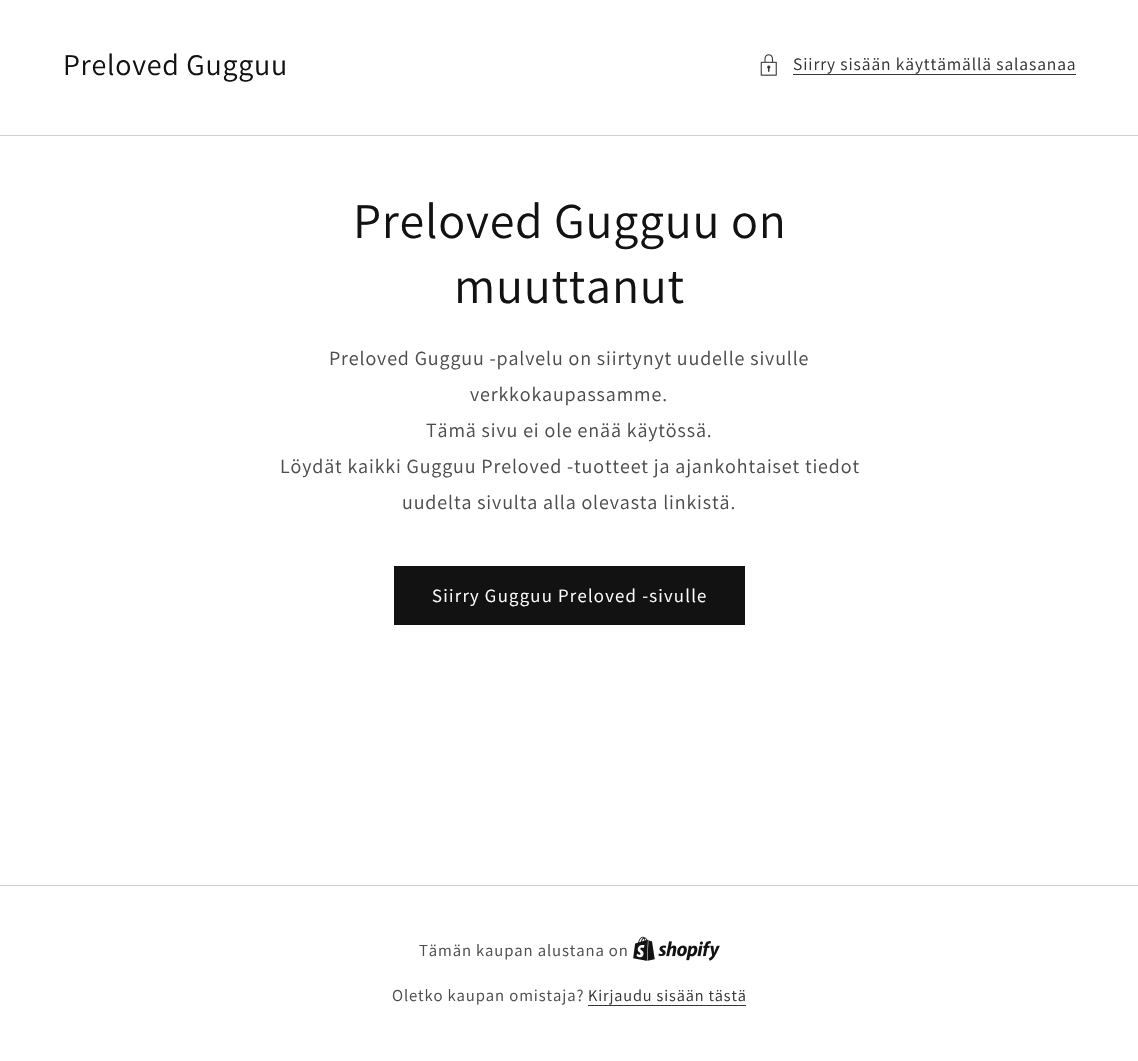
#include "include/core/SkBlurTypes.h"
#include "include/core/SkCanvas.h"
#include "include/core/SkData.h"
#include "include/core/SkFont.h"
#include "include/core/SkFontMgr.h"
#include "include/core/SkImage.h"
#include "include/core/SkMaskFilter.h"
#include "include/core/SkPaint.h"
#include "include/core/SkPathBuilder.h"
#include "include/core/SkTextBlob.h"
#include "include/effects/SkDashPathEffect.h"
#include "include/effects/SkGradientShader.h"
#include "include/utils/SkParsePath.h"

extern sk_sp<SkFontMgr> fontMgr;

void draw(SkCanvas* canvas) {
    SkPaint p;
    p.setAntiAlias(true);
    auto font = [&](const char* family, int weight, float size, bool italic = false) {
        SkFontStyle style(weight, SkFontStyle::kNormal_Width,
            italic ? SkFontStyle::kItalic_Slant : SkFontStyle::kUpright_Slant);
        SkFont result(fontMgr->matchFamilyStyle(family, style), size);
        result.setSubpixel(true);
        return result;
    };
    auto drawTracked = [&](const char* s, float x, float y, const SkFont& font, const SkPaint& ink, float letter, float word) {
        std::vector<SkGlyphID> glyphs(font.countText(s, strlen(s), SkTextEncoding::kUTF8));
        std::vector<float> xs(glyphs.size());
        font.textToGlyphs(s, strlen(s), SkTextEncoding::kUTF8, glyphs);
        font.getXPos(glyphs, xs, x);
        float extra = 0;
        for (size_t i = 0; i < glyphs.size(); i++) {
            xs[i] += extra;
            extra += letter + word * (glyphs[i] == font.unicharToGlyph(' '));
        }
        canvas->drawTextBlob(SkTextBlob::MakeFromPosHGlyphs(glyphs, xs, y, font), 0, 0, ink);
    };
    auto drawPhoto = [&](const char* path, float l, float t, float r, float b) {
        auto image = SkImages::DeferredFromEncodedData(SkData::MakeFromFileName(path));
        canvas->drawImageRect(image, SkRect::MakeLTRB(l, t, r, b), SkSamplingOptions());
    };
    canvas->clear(0xFFFFFFFF);
    auto font1 = font("Assistant", 400, 30);
    p.setColor(0xFF121212);
    drawTracked("Preloved Gugguu", 63, 75, font1, p, 0.75f, 0);
    drawPhoto("media/1.png", 760, 54, 777, 76);
    auto font2 = font("Assistant", 400, 17.5f);
    p.setColor(0xFF363636);
    drawTracked("Siirry sisään käyttämällä salasanaa", 793, 70, font2, p, 0.88f, 0);
    canvas->drawRect(SkRect::MakeLTRB(793, 74, 1076, 75), p);
    p.setColor(0xFFD0D0D0);
    canvas->drawRect(SkRect::MakeLTRB(0, 135, 1138, 136), p);
    auto font3 = font("Assistant", 400, 50);
    p.setColor(0xFF121212);
    drawTracked("Preloved Gugguu on", 353, 238, font3, p, 0.75f, 0);
    drawTracked("muuttanut", 454, 303, font3, p, 0.75f, 0);
    auto font4 = font("Assistant", 400, 20);
    p.setColor(0xFF4D4D4D);
    {
        const struct { const char* s; float x, y; } items[] = {
            {"Preloved Gugguu -palvelu on siirtynyt uudelle sivulle", 329, 365},
            {"verkkokaupassamme.", 470, 401},
            {"Tämä sivu ei ole enää käytössä.", 426, 437},
            {"Löydät kaikki Gugguu Preloved -tuotteet ja ajankohtaiset tiedot", 280, 473},
            {"uudelta sivulta alla olevasta linkistä.", 402, 509},
        };
        for (auto [s, x, y] : items) {
            drawTracked(s, x, y, font4, p, 0.88f, 0);
        }
    }
    p.setColor(0xFF121212);
    canvas->drawRect(SkRect::MakeLTRB(394, 566, 745, 625), p);
    auto font5 = font("Assistant", 400, 18.75f);
    p.setColor(0xFFFFFFFF);
    drawTracked("Siirry Gugguu Preloved -sivulle", 432, 602, font5, p, 1.25f, 0);
    p.setColor(0xFFD0D0D0);
    canvas->drawRect(SkRect::MakeLTRB(0, 885, 1138, 886), p);
    auto font6 = font("Assistant", 400, 16.7f);
    p.setColor(0xFF4D4D4D);
    drawTracked("Tämän kaupan alustana on", 419, 956, font6, p, 0.88f, 0);
    drawPhoto("media/2.png", 633, 936, 720, 961);
    drawTracked("Oletko kaupan omistaja?", 392, 1001, font6, p, 0.88f, 0);
    auto font7 = font("Assistant", 400, 16.25f);
    p.setColor(0xFF363636);
    drawTracked("Kirjaudu sisään tästä", 588, 1001, font7, p, 0.88f, 0);
    canvas->drawRect(SkRect::MakeLTRB(588, 1005, 746, 1006), p);
}
